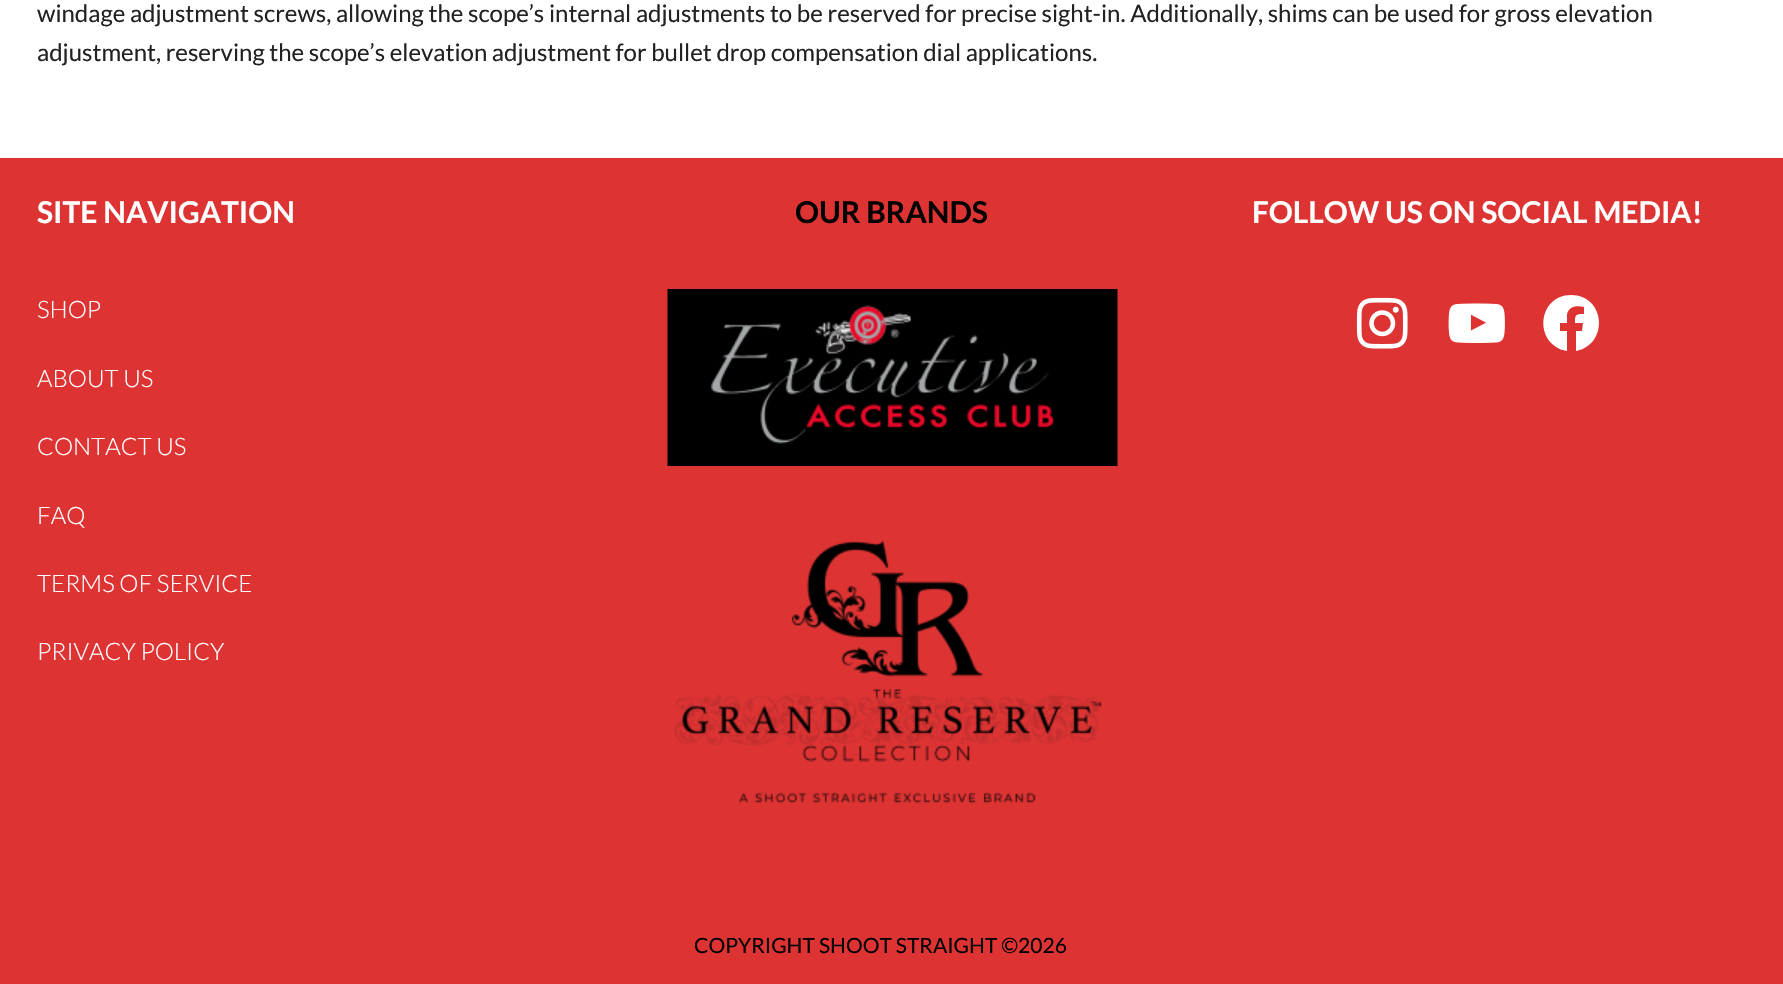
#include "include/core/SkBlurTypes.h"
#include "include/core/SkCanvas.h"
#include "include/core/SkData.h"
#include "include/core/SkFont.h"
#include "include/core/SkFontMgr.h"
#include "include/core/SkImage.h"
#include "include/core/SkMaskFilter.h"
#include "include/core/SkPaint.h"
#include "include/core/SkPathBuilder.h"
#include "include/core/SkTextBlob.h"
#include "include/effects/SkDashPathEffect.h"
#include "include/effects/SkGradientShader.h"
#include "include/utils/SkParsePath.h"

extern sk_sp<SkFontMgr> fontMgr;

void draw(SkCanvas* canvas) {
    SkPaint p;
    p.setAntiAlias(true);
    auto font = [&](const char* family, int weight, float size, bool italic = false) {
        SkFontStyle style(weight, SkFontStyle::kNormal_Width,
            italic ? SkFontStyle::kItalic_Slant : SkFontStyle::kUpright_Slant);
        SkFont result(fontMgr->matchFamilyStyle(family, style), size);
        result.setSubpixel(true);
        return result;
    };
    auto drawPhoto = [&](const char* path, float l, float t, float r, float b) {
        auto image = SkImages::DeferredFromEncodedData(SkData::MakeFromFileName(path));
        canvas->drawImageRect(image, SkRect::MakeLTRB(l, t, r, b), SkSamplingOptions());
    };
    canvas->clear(0xFFFFFFFF);
    auto font1 = font("Lato", 400, 24);
    p.setColor(0xFF222222);
    canvas->drawString("windage adjustment screws, allowing the scope’s internal adjustments to be reserved for precise sight-in. Additionally, shims can be used for gross elevation", 37, 22, font1, p);
    canvas->drawString("adjustment, reserving the scope’s elevation adjustment for bullet drop compensation dial applications.", 37, 61, font1, p);
    p.setColor(0xFFDD3333);
    canvas->drawRect(SkRect::MakeLTRB(0, 158, 1783, 984), p);
    auto font2 = font("Lato", 700, 30);
    p.setColor(0xFFFFFFFF);
    canvas->drawString("SITE NAVIGATION", 37, 223, font2, p);
    auto font3 = font("Lato", 300, 24);
    {
        const struct { const char* s; float x, y; } items[] = {
            {"SHOP", 37, 318},
            {"ABOUT US", 37, 387},
            {"CONTACT US", 37, 455},
            {"FAQ", 37, 524},
            {"TERMS OF SERVICE", 37, 592},
            {"PRIVACY POLICY", 37, 660},
        };
        for (auto [s, x, y] : items) {
            canvas->drawString(s, x, y, font3, p);
        }
    }
    p.setColor(0xFF000000);
    canvas->drawString("OUR BRANDS", 795, 223, font2, p);
    drawPhoto("media/1.png", 667, 289, 1118, 466);
    drawPhoto("media/2.png", 674, 540, 1102, 804);
    p.setColor(0xFFFFFFFF);
    canvas->drawString("FOLLOW US ON SOCIAL MEDIA!", 1252, 223, font2, p);
    drawPhoto("media/3.png", 1356, 297, 1408, 349);
    drawPhoto("media/4.png", 1448, 303, 1505, 343);
    canvas->drawPath(SkPathBuilder().moveTo(1571, 295).cubicTo(1537, 295, 1533, 345, 1567, 351).lineTo(1567, 331).lineTo(1560, 331).lineTo(1560, 323).lineTo(1567, 323).lineTo(1567, 315).cubicTo(1568, 306, 1577, 305, 1584, 307).lineTo(1584, 314).cubicTo(1575, 314, 1575, 315, 1575, 323).lineTo(1583, 323).lineTo(1582, 331).lineTo(1576, 331).lineTo(1576, 351).cubicTo(1609, 345, 1606, 295, 1571, 295).close().detach(), p);
    auto font4 = font("Lato", 400, 21);
    p.setColor(0xFF000000);
    canvas->drawString("COPYRIGHT SHOOT STRAIGHT ©2026", 694, 953, font4, p);
}
